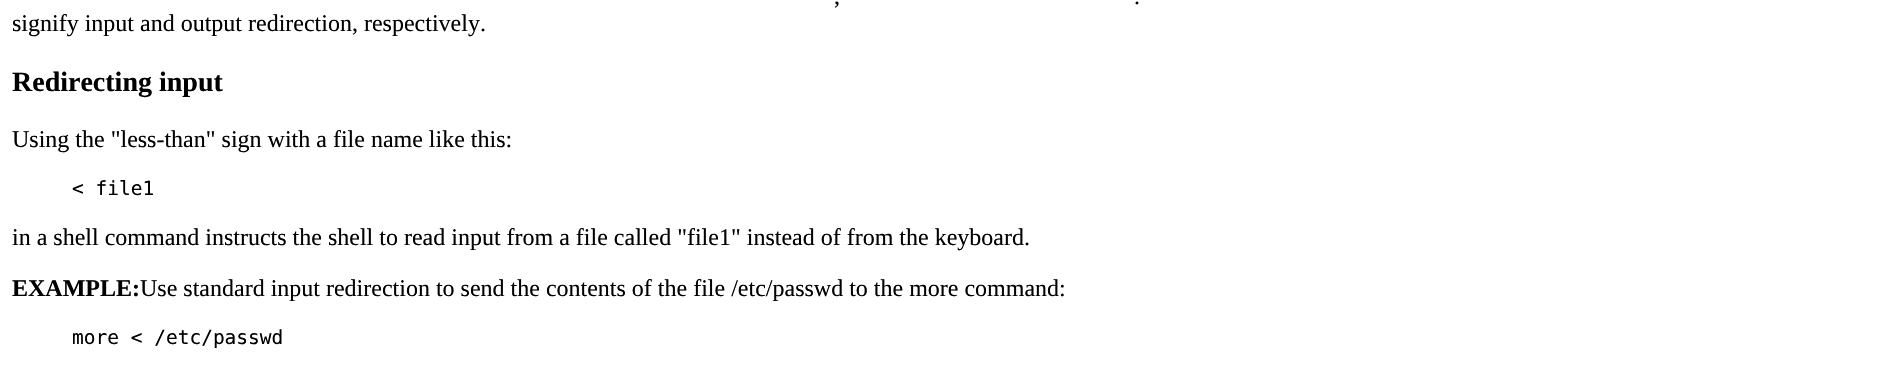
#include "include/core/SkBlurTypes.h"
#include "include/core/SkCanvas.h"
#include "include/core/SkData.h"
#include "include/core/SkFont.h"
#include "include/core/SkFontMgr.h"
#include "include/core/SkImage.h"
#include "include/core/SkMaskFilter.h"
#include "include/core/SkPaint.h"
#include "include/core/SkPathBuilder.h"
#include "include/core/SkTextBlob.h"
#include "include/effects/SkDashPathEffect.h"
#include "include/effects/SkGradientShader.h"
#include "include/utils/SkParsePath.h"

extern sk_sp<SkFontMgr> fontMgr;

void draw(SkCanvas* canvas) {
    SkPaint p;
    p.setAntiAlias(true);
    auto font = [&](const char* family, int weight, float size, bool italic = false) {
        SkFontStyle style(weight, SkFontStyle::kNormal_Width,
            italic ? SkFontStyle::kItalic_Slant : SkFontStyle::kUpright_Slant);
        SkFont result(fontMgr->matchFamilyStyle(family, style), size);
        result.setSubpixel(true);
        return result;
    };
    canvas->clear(0xFFFFFFFF);
    auto font1 = font("Liberation Serif", 400, 24);
    p.setColor(0xFF000000);
    {
        const struct { const char* s; float x, y; } items[] = {
            {",", 834, 4},
            {".", 1134, 4},
            {"signify input and output redirection, respectively.", 12, 31},
        };
        for (auto [s, x, y] : items) {
            canvas->drawString(s, x, y, font1, p);
        }
    }
    auto font2 = font("Liberation Serif", 700, 28);
    canvas->drawString("Redirecting input", 12, 91, font2, p);
    canvas->drawString("Using the \"less-than\" sign with a file name like this:", 12, 147, font1, p);
    auto font3 = font("DejaVu Sans Mono", 400, 19.5f);
    canvas->drawString("< file1", 72, 195, font3, p);
    canvas->drawString("in a shell command instructs the shell to read input from a file called \"file1\" instead of from the keyboard.", 12, 245, font1, p);
    auto font4 = font("Liberation Serif", 700, 24);
    canvas->drawString("EXAMPLE:", 12, 296, font4, p);
    canvas->drawString("Use standard input redirection to send the contents of the file /etc/passwd to the more command:", 140, 296, font1, p);
    canvas->drawString("more < /etc/passwd", 72, 344, font3, p);
}
